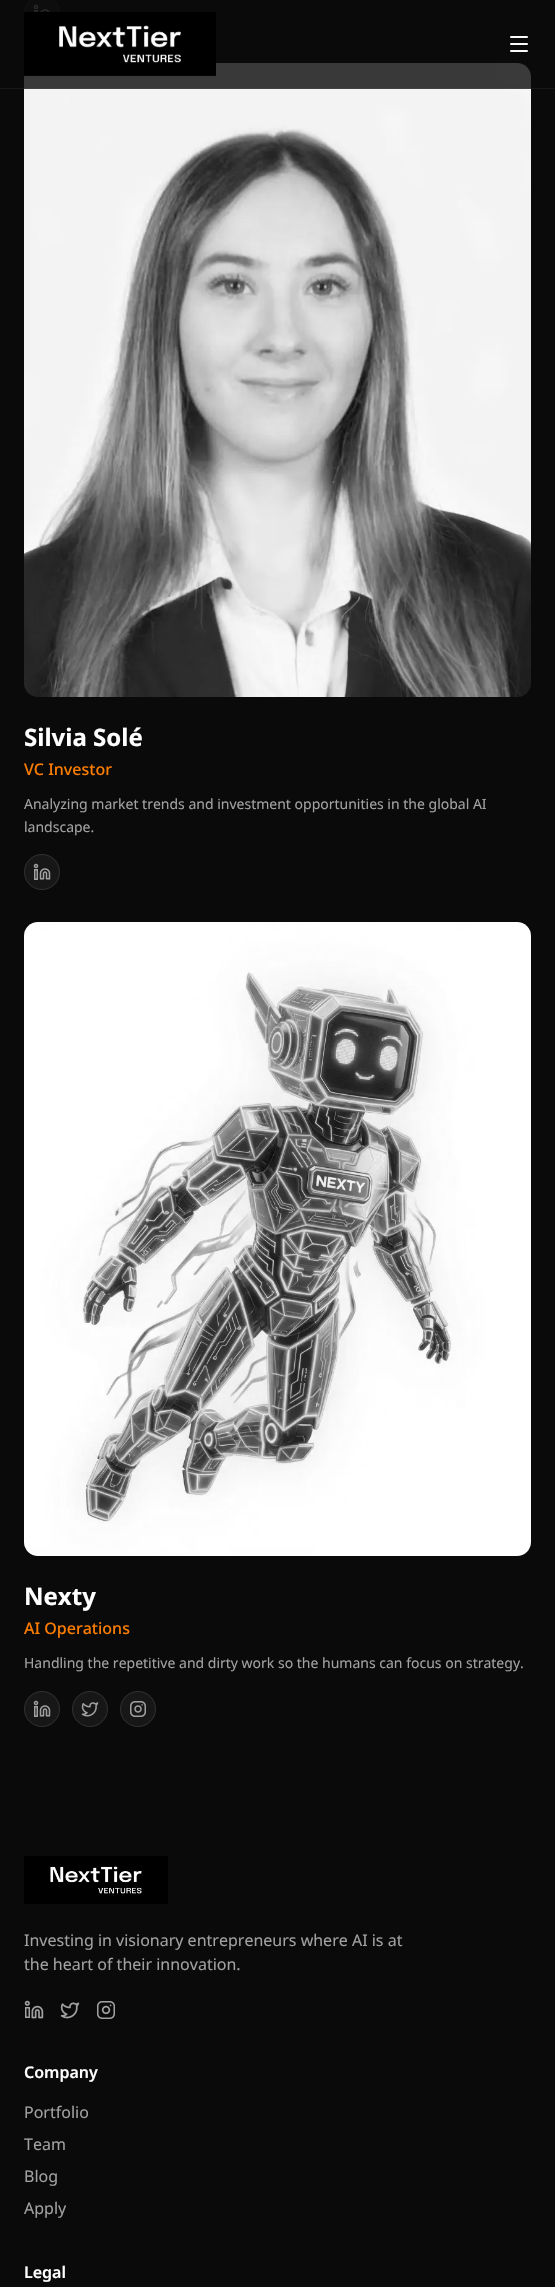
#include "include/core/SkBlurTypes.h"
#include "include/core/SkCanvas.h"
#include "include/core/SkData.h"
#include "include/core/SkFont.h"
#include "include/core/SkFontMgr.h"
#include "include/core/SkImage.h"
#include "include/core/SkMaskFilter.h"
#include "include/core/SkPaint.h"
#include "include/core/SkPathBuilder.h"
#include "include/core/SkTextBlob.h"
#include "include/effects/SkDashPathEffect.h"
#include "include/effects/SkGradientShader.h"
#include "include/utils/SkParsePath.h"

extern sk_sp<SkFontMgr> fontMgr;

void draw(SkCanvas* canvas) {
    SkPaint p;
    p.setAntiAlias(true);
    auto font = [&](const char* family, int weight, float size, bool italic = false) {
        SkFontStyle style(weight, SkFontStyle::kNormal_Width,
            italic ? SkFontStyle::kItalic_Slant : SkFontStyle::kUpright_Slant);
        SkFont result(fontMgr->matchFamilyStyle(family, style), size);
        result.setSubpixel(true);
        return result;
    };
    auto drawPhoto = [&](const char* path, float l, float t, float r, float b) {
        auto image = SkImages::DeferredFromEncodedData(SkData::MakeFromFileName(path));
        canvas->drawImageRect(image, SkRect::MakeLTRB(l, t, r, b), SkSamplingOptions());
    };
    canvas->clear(0xFF0A0A0A);
    p.setColor(0xFF171717);
    canvas->drawCircle(42, 13, 18, p);
    p.setStyle(SkPaint::kStroke_Style);
    p.setStrokeWidth(1);
    p.setColor(0x1AFFFFFF);
    canvas->drawCircle(42, 13, 17.5f, p);
    drawPhoto("media/3.png", 33, 4, 50, 12);
    drawPhoto("media/4.png", 24, 63, 531, 697);
    p.setStyle(SkPaint::kFill_Style);
    p.setColor(0xCC0A0A0A);
    canvas->drawRect(SkRect::MakeLTRB(24, 0, 531, 89), p);
    p.setColor(0x0DFFFFFF);
    canvas->drawRect(SkRect::MakeLTRB(0, 88, 555, 89), p);
    drawPhoto("media/1.png", 24, 12, 216, 76);
    drawPhoto("media/2.png", 510, 36, 528, 52);
    auto font1 = font("Noto Sans", 700, 24);
    p.setColor(0xFFFFFFFF);
    canvas->drawString("Silvia Solé", 24, 746, font1, p);
    auto font2 = font("Noto Sans", 500, 16);
    p.setColor(0xFFFB7C00);
    canvas->drawString("VC Investor", 24, 775, font2, p);
    auto font3 = font("Noto Sans", 400, 14);
    p.setColor(0xFFA1A1A1);
    canvas->drawString("Analyzing market trends and investment opportunities in the global AI", 24, 809, font3, p);
    canvas->drawString("landscape.", 24, 832, font3, p);
    p.setColor(0xFF171717);
    canvas->drawCircle(42, 872, 18, p);
    p.setStyle(SkPaint::kStroke_Style);
    p.setColor(0x1AFFFFFF);
    canvas->drawCircle(42, 872, 17.5f, p);
    drawPhoto("media/5.png", 33, 863, 51, 880);
    drawPhoto("media/6.png", 24, 922, 531, 1556);
    p.setStyle(SkPaint::kFill_Style);
    p.setColor(0xFFFFFFFF);
    canvas->drawString("Nexty", 24, 1605, font1, p);
    p.setColor(0xFFFB7C00);
    canvas->drawString("AI Operations", 24, 1634, font2, p);
    p.setColor(0xFFA1A1A1);
    canvas->drawString("Handling the repetitive and dirty work so the humans can focus on strategy.", 24, 1668, font3, p);
    p.setColor(0xFF171717);
    canvas->drawCircle(42, 1709, 18, p);
    p.setStyle(SkPaint::kStroke_Style);
    p.setColor(0x1AFFFFFF);
    canvas->drawCircle(42, 1709, 17.5f, p);
    drawPhoto("media/5.png", 33, 1700, 51, 1717);
    p.setStyle(SkPaint::kFill_Style);
    p.setColor(0xFF171717);
    canvas->drawCircle(90, 1709, 18, p);
    p.setStyle(SkPaint::kStroke_Style);
    p.setColor(0x1AFFFFFF);
    canvas->drawCircle(90, 1709, 17.5f, p);
    drawPhoto("media/7.png", 81, 1702, 99, 1717);
    p.setStyle(SkPaint::kFill_Style);
    p.setColor(0xFF171717);
    canvas->drawCircle(138, 1709, 18, p);
    p.setStyle(SkPaint::kStroke_Style);
    p.setColor(0x1AFFFFFF);
    canvas->drawCircle(138, 1709, 17.5f, p);
    drawPhoto("media/8.png", 130, 1701, 146, 1717);
    drawPhoto("media/9.png", 24, 1856, 168, 1904);
    auto font4 = font("Noto Sans", 400, 16);
    p.setStyle(SkPaint::kFill_Style);
    p.setColor(0xFFA1A1A1);
    canvas->drawString("Investing in visionary entrepreneurs where AI is at", 24, 1946, font4, p);
    canvas->drawString("the heart of their innovation.", 24, 1970, font4, p);
    drawPhoto("media/10.png", 24, 2000, 44, 2019);
    drawPhoto("media/11.png", 60, 2002, 80, 2019);
    drawPhoto("media/12.png", 97, 2001, 115, 2019);
    auto font5 = font("Noto Sans", 600, 16);
    p.setColor(0xFFFFFFFF);
    canvas->drawString("Company", 24, 2078, font5, p);
    p.setColor(0xFFA1A1A1);
    {
        const struct { const char* s; float x, y; } items[] = {
            {"Portfolio", 24, 2118},
            {"Team", 24, 2150},
            {"Blog", 24, 2182},
            {"Apply", 24, 2214},
        };
        for (auto [s, x, y] : items) {
            canvas->drawString(s, x, y, font4, p);
        }
    }
    p.setColor(0xFFFFFFFF);
    canvas->drawString("Legal", 24, 2278, font5, p);
}
